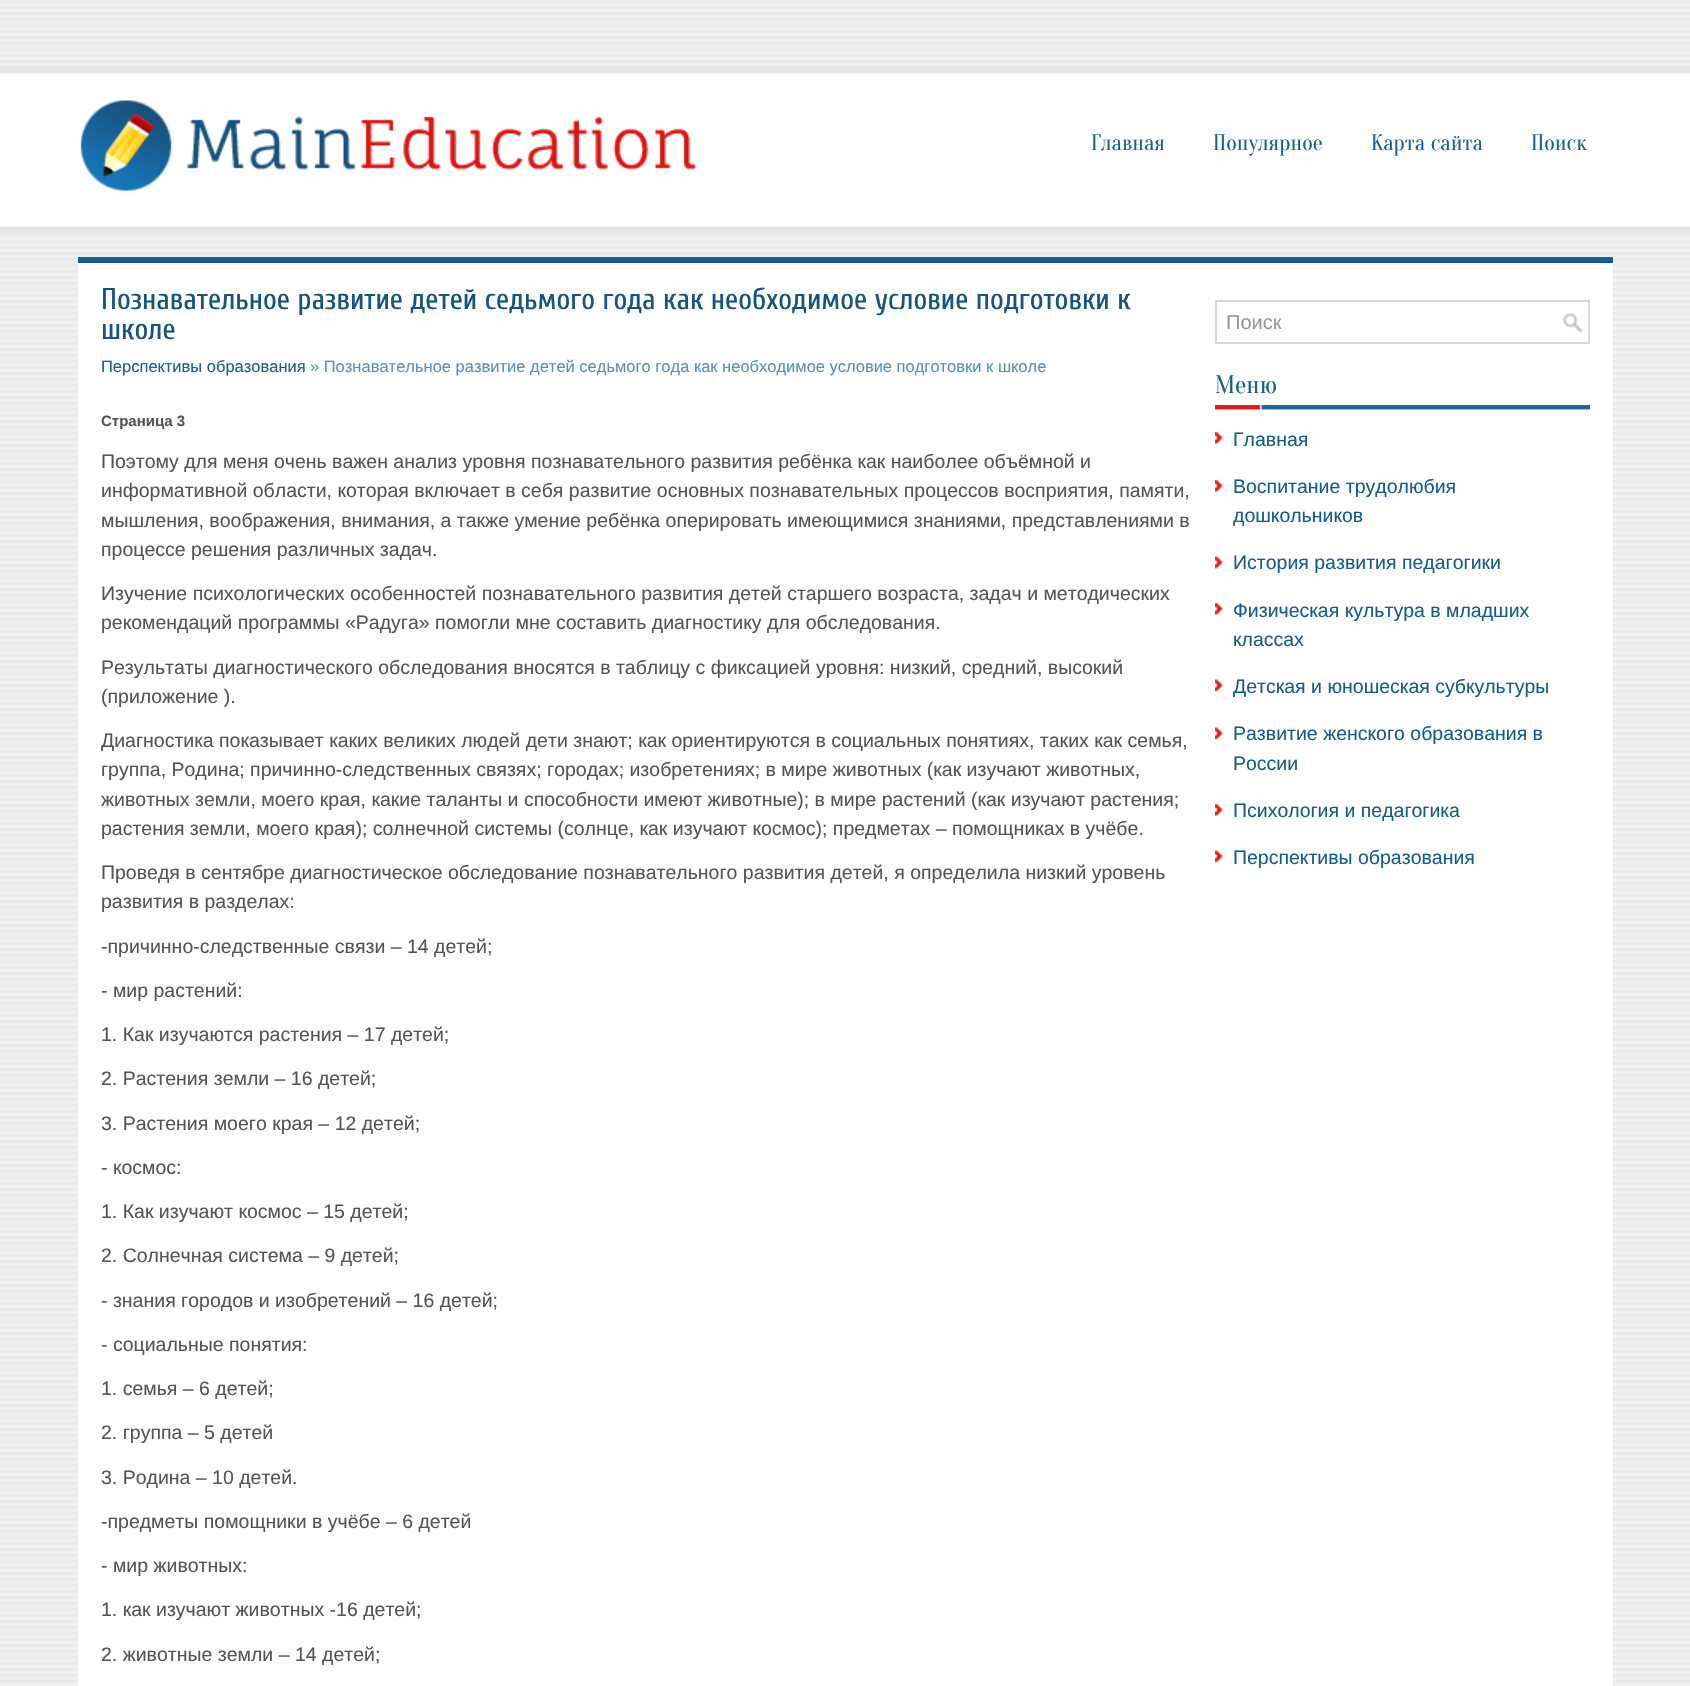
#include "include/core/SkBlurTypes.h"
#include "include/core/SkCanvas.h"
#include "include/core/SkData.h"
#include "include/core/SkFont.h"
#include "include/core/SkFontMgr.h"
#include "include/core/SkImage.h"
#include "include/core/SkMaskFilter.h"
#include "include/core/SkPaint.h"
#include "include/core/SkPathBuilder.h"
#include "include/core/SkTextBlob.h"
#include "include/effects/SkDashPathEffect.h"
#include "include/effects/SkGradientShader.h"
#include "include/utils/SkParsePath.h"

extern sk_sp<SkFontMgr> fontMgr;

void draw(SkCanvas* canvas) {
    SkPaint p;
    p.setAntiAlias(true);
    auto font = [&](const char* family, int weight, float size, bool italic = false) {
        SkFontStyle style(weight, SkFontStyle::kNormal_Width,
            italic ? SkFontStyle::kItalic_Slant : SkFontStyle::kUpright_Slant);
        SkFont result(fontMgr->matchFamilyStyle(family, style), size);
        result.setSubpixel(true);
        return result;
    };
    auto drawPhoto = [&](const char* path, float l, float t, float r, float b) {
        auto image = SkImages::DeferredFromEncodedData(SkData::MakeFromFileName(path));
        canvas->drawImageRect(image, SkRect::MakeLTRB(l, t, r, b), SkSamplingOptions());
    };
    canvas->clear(0xFFFFFFFF);
    drawPhoto("media/1.png", 0, 0, 1690, 1686);
    drawPhoto("media/2.png", 80, 100, 697, 191);
    auto font1 = font("Oranienbaum", 400, 22.5f);
    p.setColor(0xFF185F95);
    {
        const struct { const char* s; float x, y; } items[] = {
            {"Главная", 1091, 150},
            {"Популярное", 1213, 150},
            {"Карта сайта", 1371, 150},
            {"Поиск", 1531, 150},
        };
        for (auto [s, x, y] : items) {
            canvas->drawString(s, x, y, font1, p);
        }
    }
    {
        const SkColor colors[] = {0xFF1868A3, 0xFF18537F};
        const float stops[] = {0, 1};
        const SkPoint ends[] = {{845, 256}, {845, 263}};
        p.setShader(SkGradientShader::MakeLinear(ends, colors, stops, 2, SkTileMode::kClamp));
        p.setAlpha(255);
    }
    canvas->drawRect(SkRect::MakeLTRB(78, 257, 1613, 263), p);
    p.setShader(nullptr);
    p.setColor(0xFFFFFFFF);
    canvas->drawRect(SkRect::MakeLTRB(78, 263, 1613, 1686), p);
    auto font2 = font("Cuprum", 400, 30);
    p.setColor(0xFF185481);
    canvas->drawString("Познавательное развитие детей седьмого года как необходимое условие подготовки к", 101, 309, font2, p);
    canvas->drawString("школе", 101, 339, font2, p);
    auto font3 = font("Liberation Sans", 400, 16.5f);
    p.setColor(0xFF185F95);
    canvas->drawString("Перспективы образования", 101, 372, font3, p);
    p.setColor(0xFF5A91BA);
    canvas->drawString("» Познавательное развитие детей седьмого года как необходимое условие подготовки к школе", 310, 372, font3, p);
    auto font4 = font("Liberation Sans", 700, 15);
    p.setColor(0xFF555555);
    canvas->drawString("Страница 3", 101, 426, font4, p);
    auto font5 = font("Liberation Sans", 400, 19.5f);
    {
        const struct { const char* s; float x, y; } items[] = {
            {"Поэтому для меня очень важен анализ уровня познавательного развития ребёнка как наиболее объёмной и", 101, 468},
            {"информативной области, которая включает в себя развитие основных познавательных процессов восприятия, памяти,", 101, 497},
            {"мышления, воображения, внимания, а также умение ребёнка оперировать имеющимися знаниями, представлениями в", 101, 527},
            {"процессе решения различных задач.", 101, 556},
            {"Изучение психологических особенностей познавательного развития детей старшего возраста, задач и методических", 101, 600},
            {"рекомендаций программы «Радуга» помогли мне составить диагностику для обследования.", 101, 629},
            {"Результаты диагностического обследования вносятся в таблицу с фиксацией уровня: низкий, средний, высокий", 101, 674},
            {"(приложение ).", 101, 703},
        };
        for (auto [s, x, y] : items) {
            canvas->drawString(s, x, y, font5, p);
        }
    }
    canvas->save();
    canvas->clipRect(SkRect::MakeLTRB(101, 285, 1193, 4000));
    canvas->drawString("Диагностика показывает каких великих людей дети знают; как ориентируются в социальных понятиях, таких как семья,", 101, 747, font5, p);
    canvas->restore();
    {
        const struct { const char* s; float x, y; } items[] = {
            {"группа, Родина; причинно-следственных связях; городах; изобретениях; в мире животных (как изучают животных,", 101, 776},
            {"животных земли, моего края, какие таланты и способности имеют животные); в мире растений (как изучают растения;", 101, 806},
            {"растения земли, моего края); солнечной системы (солнце, как изучают космос); предметах – помощниках в учёбе.", 101, 835},
            {"Проведя в сентябре диагностическое обследование познавательного развития детей, я определила низкий уровень", 101, 879},
            {"развития в разделах:", 101, 908},
            {"-причинно-следственные связи – 14 детей;", 101, 953},
            {"- мир растений:", 101, 997},
            {"1. Как изучаются растения – 17 детей;", 101, 1041},
            {"2. Растения земли – 16 детей;", 101, 1085},
            {"3. Растения моего края – 12 детей;", 101, 1130},
            {"- космос:", 101, 1174},
            {"1. Как изучают космос – 15 детей;", 101, 1218},
            {"2. Солнечная система – 9 детей;", 101, 1262},
            {"- знания городов и изобретений – 16 детей;", 101, 1307},
            {"- социальные понятия:", 101, 1351},
            {"1. семья – 6 детей;", 101, 1395},
            {"2. группа – 5 детей", 101, 1439},
            {"3. Родина – 10 детей.", 101, 1484},
            {"-предметы помощники в учёбе – 6 детей", 101, 1528},
            {"- мир животных:", 101, 1572},
            {"1. как изучают животных -16 детей;", 101, 1616},
            {"2. животные земли – 14 детей;", 101, 1661},
        };
        for (auto [s, x, y] : items) {
            canvas->drawString(s, x, y, font5, p);
        }
    }
    drawPhoto("media/3.png", 1562, 313, 1583, 333);
    p.setStyle(SkPaint::kStroke_Style);
    p.setStrokeWidth(2);
    p.setColor(0xFFD8D8D8);
    canvas->drawRect(SkRect::MakeLTRB(1216, 301, 1589, 343), p);
    auto font6 = font("Liberation Sans", 400, 20);
    p.setStyle(SkPaint::kFill_Style);
    p.setColor(0xFF979797);
    canvas->drawString("Поиск", 1226, 329, font6, p);
    drawPhoto("media/4.png", 1215, 405, 1590, 410);
    auto font7 = font("Oranienbaum", 400, 25.5f);
    p.setColor(0xFF185C8F);
    canvas->drawString("Меню", 1215, 393, font7, p);
    drawPhoto("media/5.png", 1215, 432, 1223, 444);
    canvas->drawString("Главная", 1233, 446, font5, p);
    drawPhoto("media/5.png", 1215, 480, 1223, 492);
    canvas->drawString("Воспитание трудолюбия", 1233, 493, font5, p);
    canvas->drawString("дошкольников", 1233, 522, font5, p);
    drawPhoto("media/6.png", 1215, 556, 1223, 569);
    canvas->drawString("История развития педагогики", 1233, 569, font5, p);
    drawPhoto("media/5.png", 1215, 603, 1223, 615);
    canvas->drawString("Физическая культура в младших", 1233, 617, font5, p);
    canvas->drawString("классах", 1233, 646, font5, p);
    drawPhoto("media/6.png", 1215, 679, 1223, 692);
    canvas->drawString("Детская и юношеская субкультуры", 1233, 693, font5, p);
    drawPhoto("media/6.png", 1215, 727, 1223, 740);
    canvas->drawString("Развитие женского образования в", 1233, 740, font5, p);
    canvas->drawString("России", 1233, 770, font5, p);
    drawPhoto("media/5.png", 1215, 804, 1223, 816);
    canvas->drawString("Психология и педагогика", 1233, 817, font5, p);
    drawPhoto("media/6.png", 1215, 850, 1223, 863);
    canvas->drawString("Перспективы образования", 1233, 864, font5, p);
}
